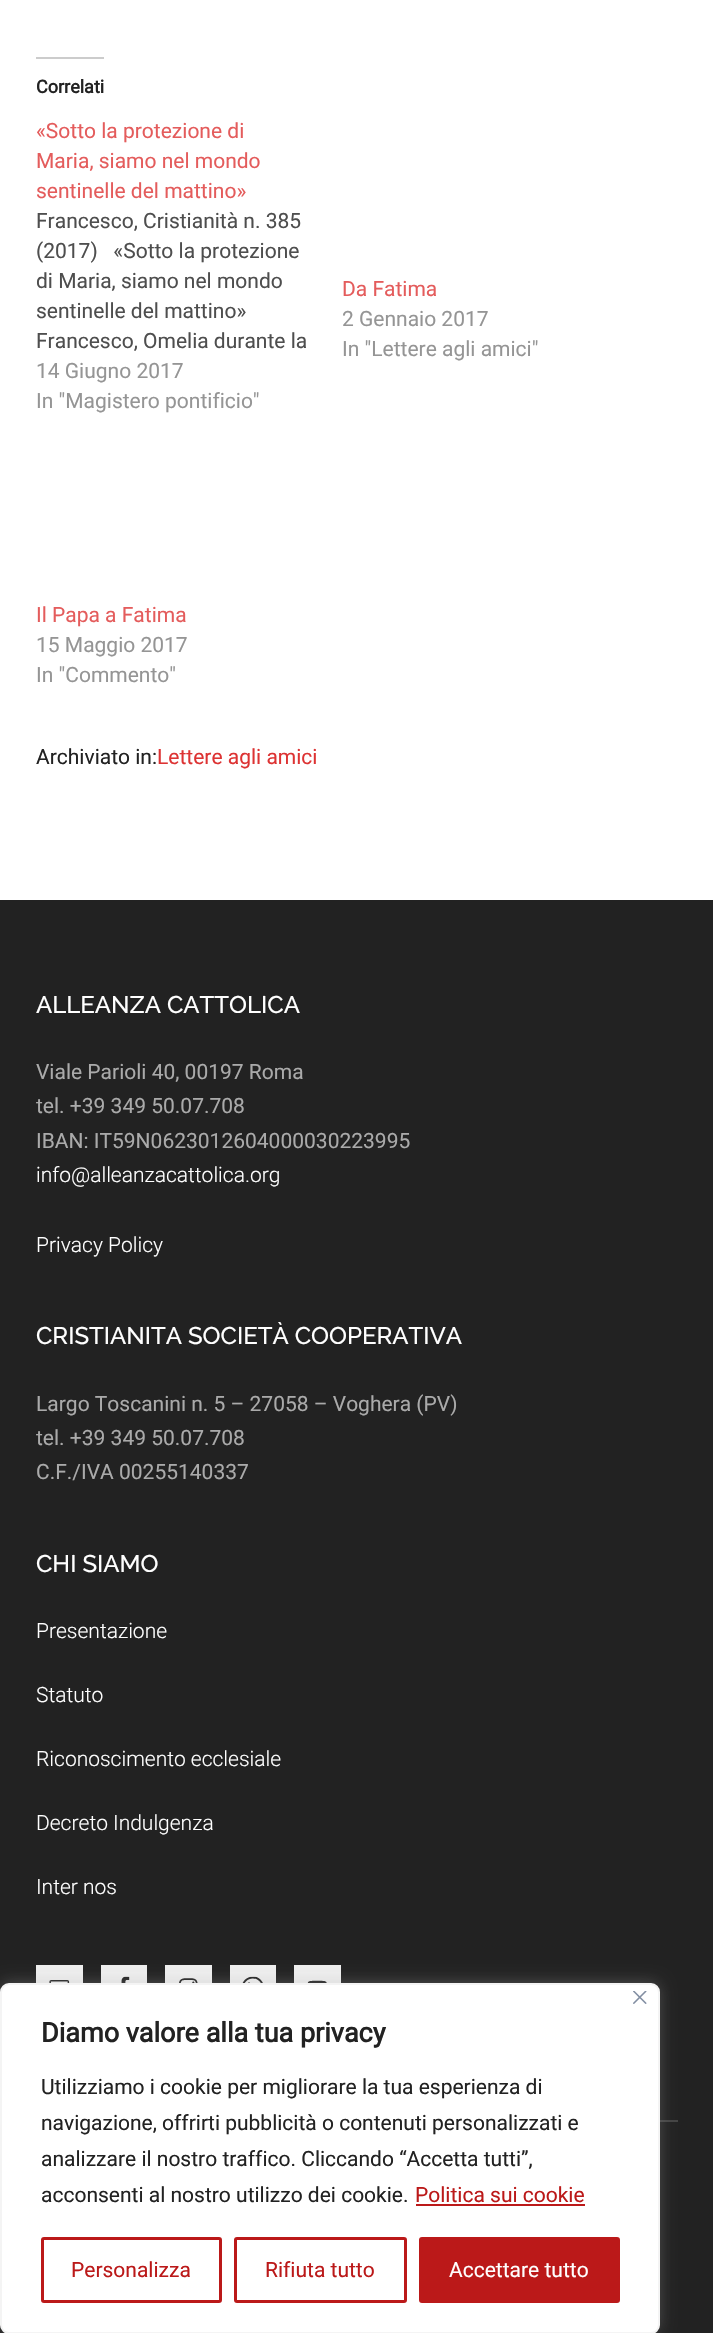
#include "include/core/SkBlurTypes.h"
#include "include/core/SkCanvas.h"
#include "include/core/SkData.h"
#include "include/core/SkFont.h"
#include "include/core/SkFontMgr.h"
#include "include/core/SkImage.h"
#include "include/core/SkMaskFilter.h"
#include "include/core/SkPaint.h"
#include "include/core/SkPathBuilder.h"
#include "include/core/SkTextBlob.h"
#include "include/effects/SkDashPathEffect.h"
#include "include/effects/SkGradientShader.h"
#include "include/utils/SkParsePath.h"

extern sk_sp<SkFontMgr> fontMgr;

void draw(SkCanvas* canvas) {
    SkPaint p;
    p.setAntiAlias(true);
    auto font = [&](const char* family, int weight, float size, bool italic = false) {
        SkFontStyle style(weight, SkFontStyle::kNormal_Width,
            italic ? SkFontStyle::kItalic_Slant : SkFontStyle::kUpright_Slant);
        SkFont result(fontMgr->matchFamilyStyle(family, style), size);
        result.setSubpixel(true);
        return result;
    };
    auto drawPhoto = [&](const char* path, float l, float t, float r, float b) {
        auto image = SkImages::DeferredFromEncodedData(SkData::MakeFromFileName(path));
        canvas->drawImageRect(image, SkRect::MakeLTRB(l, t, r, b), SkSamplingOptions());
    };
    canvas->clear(0xFFFFFFFF);
    p.setColor(0xFFCCCCCC);
    canvas->drawRect(SkRect::MakeLTRB(36, 57, 104, 59), p);
    auto font1 = font("Roboto", 700, 18);
    p.setColor(0xFF222222);
    canvas->drawString("Correlati", 36, 93, font1, p);
    auto font2 = font("Roboto", 400, 21);
    p.setColor(0xFFE45C5C);
    {
        const struct { const char* s; float x, y; } items[] = {
            {"«Sotto la protezione di", 36, 138},
            {"Maria, siamo nel mondo", 36, 168},
            {"sentinelle del mattino»", 36, 198},
        };
        for (auto [s, x, y] : items) {
            canvas->drawString(s, x, y, font2, p);
        }
    }
    p.setColor(0xFF4E4E4E);
    {
        const struct { const char* s; float x, y; } items[] = {
            {"Francesco, Cristianità n. 385", 36, 228},
            {"(2017)   «Sotto la protezione", 36, 258},
            {"di Maria, siamo nel mondo", 36, 288},
            {"sentinelle del mattino»", 36, 318},
            {"Francesco, Omelia durante la", 36, 348},
        };
        for (auto [s, x, y] : items) {
            canvas->drawString(s, x, y, font2, p);
        }
    }
    p.setColor(0xFF959595);
    canvas->drawString("14 Giugno 2017", 36, 378, font2, p);
    canvas->drawString("In \"Magistero pontificio\"", 36, 408, font2, p);
    p.setColor(0xFFE45C5C);
    canvas->drawString("Da Fatima", 342, 296, font2, p);
    p.setColor(0xFF959595);
    canvas->drawString("2 Gennaio 2017", 342, 326, font2, p);
    canvas->drawString("In \"Lettere agli amici\"", 342, 356, font2, p);
    p.setColor(0xFFE45C5C);
    canvas->drawString("Il Papa a Fatima", 36, 622, font2, p);
    p.setColor(0xFF959595);
    canvas->drawString("15 Maggio 2017", 36, 652, font2, p);
    canvas->drawString("In \"Commento\"", 36, 682, font2, p);
    p.setColor(0xFF222222);
    canvas->drawString("Archiviato in:", 36, 764, font2, p);
    p.setColor(0xFFDD3333);
    canvas->drawString("Lettere agli amici", 157, 764, font2, p);
    p.setColor(0xFF222222);
    canvas->drawRect(SkRect::MakeLTRB(0, 900, 713, 2333), p);
    auto font3 = font("Raleway", 500, 24);
    p.setColor(0xFFFFFFFF);
    canvas->drawString("ALLEANZA CATTOLICA", 36, 1013, font3, p);
    p.setColor(0xFFAAAAAA);
    {
        const struct { const char* s; float x, y; } items[] = {
            {"Viale Parioli 40, 00197 Roma", 36, 1079},
            {"tel. +39 349 50.07.708", 36, 1113},
            {"IBAN: IT59N0623012604000030223995", 36, 1148},
        };
        for (auto [s, x, y] : items) {
            canvas->drawString(s, x, y, font2, p);
        }
    }
    auto font4 = font("Roboto", 300, 21);
    p.setColor(0xFFFFFFFF);
    canvas->drawString("info@alleanzacattolica.org", 36, 1182, font4, p);
    canvas->drawString("Privacy Policy", 36, 1252, font4, p);
    canvas->drawString("CRISTIANITA SOCIETÀ COOPERATIVA", 36, 1344, font3, p);
    p.setColor(0xFFAAAAAA);
    {
        const struct { const char* s; float x, y; } items[] = {
            {"Largo Toscanini n. 5 – 27058 – Voghera (PV)", 36, 1411},
            {"tel. +39 349 50.07.708", 36, 1445},
            {"C.F./IVA 00255140337", 36, 1479},
        };
        for (auto [s, x, y] : items) {
            canvas->drawString(s, x, y, font2, p);
        }
    }
    p.setColor(0xFFFFFFFF);
    canvas->drawString("CHI SIAMO", 36, 1572, font3, p);
    {
        const struct { const char* s; float x, y; } items[] = {
            {"Presentazione", 36, 1638},
            {"Statuto", 36, 1702},
            {"Riconoscimento ecclesiale", 36, 1766},
            {"Decreto Indulgenza", 36, 1830},
            {"Inter nos", 36, 1894},
        };
        for (auto [s, x, y] : items) {
            canvas->drawString(s, x, y, font4, p);
        }
    }
    p.setColor(0xFFEEEEEE);
    canvas->drawRect(SkRect::MakeLTRB(36, 1965, 83, 1983), p);
    drawPhoto("media/1.png", 49, 1980, 70, 1983);
    canvas->drawRect(SkRect::MakeLTRB(101, 1965, 147, 1983), p);
    drawPhoto("media/2.png", 121, 1976, 130, 1983);
    canvas->drawRect(SkRect::MakeLTRB(165, 1965, 212, 1983), p);
    drawPhoto("media/3.png", 179, 1978, 198, 1983);
    canvas->drawRect(SkRect::MakeLTRB(230, 1965, 276, 1983), p);
    drawPhoto("media/4.png", 242, 1976, 263, 1983);
    canvas->drawRect(SkRect::MakeLTRB(294, 1965, 341, 1983), p);
    drawPhoto("media/5.png", 307, 1980, 327, 1983);
    p.setColor(0xFF444444);
    canvas->drawRect(SkRect::MakeLTRB(660, 2120, 678, 2122), p);
    p.setColor(0x4DACABAB);
    p.setMaskFilter(SkMaskFilter::MakeBlur(kNormal_SkBlurStyle, 7.5f));
    canvas->drawRoundRect(SkRect::MakeLTRB(0, 1982, 660, 2333), 9, 9, p);
    p.setMaskFilter(nullptr);
    p.setColor(0xFFFFFFFF);
    canvas->drawRoundRect(SkRect::MakeLTRB(1, 1984, 659, 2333), 8, 8, p);
    p.setStyle(SkPaint::kStroke_Style);
    p.setStrokeWidth(2);
    p.setColor(0xFFF4F4F4);
    canvas->drawRoundRect(SkRect::MakeLTRB(1, 1984, 659, 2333), 8, 8, p);
    drawPhoto("media/6.png", 633, 1991, 647, 2004);
    auto font5 = font("Roboto", 700, 27);
    p.setStyle(SkPaint::kFill_Style);
    p.setColor(0xFF222222);
    canvas->drawString("Diamo valore alla tua privacy", 41, 2042, font5, p);
    {
        const struct { const char* s; float x, y; } items[] = {
            {"Utilizziamo i cookie per migliorare la tua esperienza di", 41, 2094},
            {"navigazione, offrirti pubblicità o contenuti personalizzati e", 41, 2130},
            {"analizzare il nostro traffico. Cliccando “Accetta tutti”,", 41, 2166},
            {"acconsenti al nostro utilizzo dei cookie.", 41, 2202},
        };
        for (auto [s, x, y] : items) {
            canvas->drawString(s, x, y, font2, p);
        }
    }
    p.setColor(0xFFBB1919);
    canvas->drawString("Politica sui cookie", 415, 2202, font2, p);
    canvas->drawRect(SkRect::MakeLTRB(416, 2204, 585, 2206), p);
    p.setStyle(SkPaint::kStroke_Style);
    p.setStrokeWidth(3);
    canvas->drawRoundRect(SkRect::MakeLTRB(42.5f, 2238.5f, 220.5f, 2301.5f), 1.5f, 1.5f, p);
    p.setStyle(SkPaint::kFill_Style);
    canvas->drawString("Personalizza", 71, 2277, font2, p);
    p.setStyle(SkPaint::kStroke_Style);
    canvas->drawRoundRect(SkRect::MakeLTRB(235.5f, 2238.5f, 405.5f, 2301.5f), 1.5f, 1.5f, p);
    p.setStyle(SkPaint::kFill_Style);
    canvas->drawString("Rifiuta tutto", 265, 2277, font2, p);
    canvas->drawRoundRect(SkRect::MakeLTRB(420.5f, 2238.5f, 618.5f, 2301.5f), 1.5f, 1.5f, p);
    p.setStyle(SkPaint::kStroke_Style);
    canvas->drawRoundRect(SkRect::MakeLTRB(420.5f, 2238.5f, 618.5f, 2301.5f), 1.5f, 1.5f, p);
    p.setStyle(SkPaint::kFill_Style);
    p.setColor(0xFFFFFFFF);
    canvas->drawString("Accettare tutto", 449, 2277, font2, p);
}
